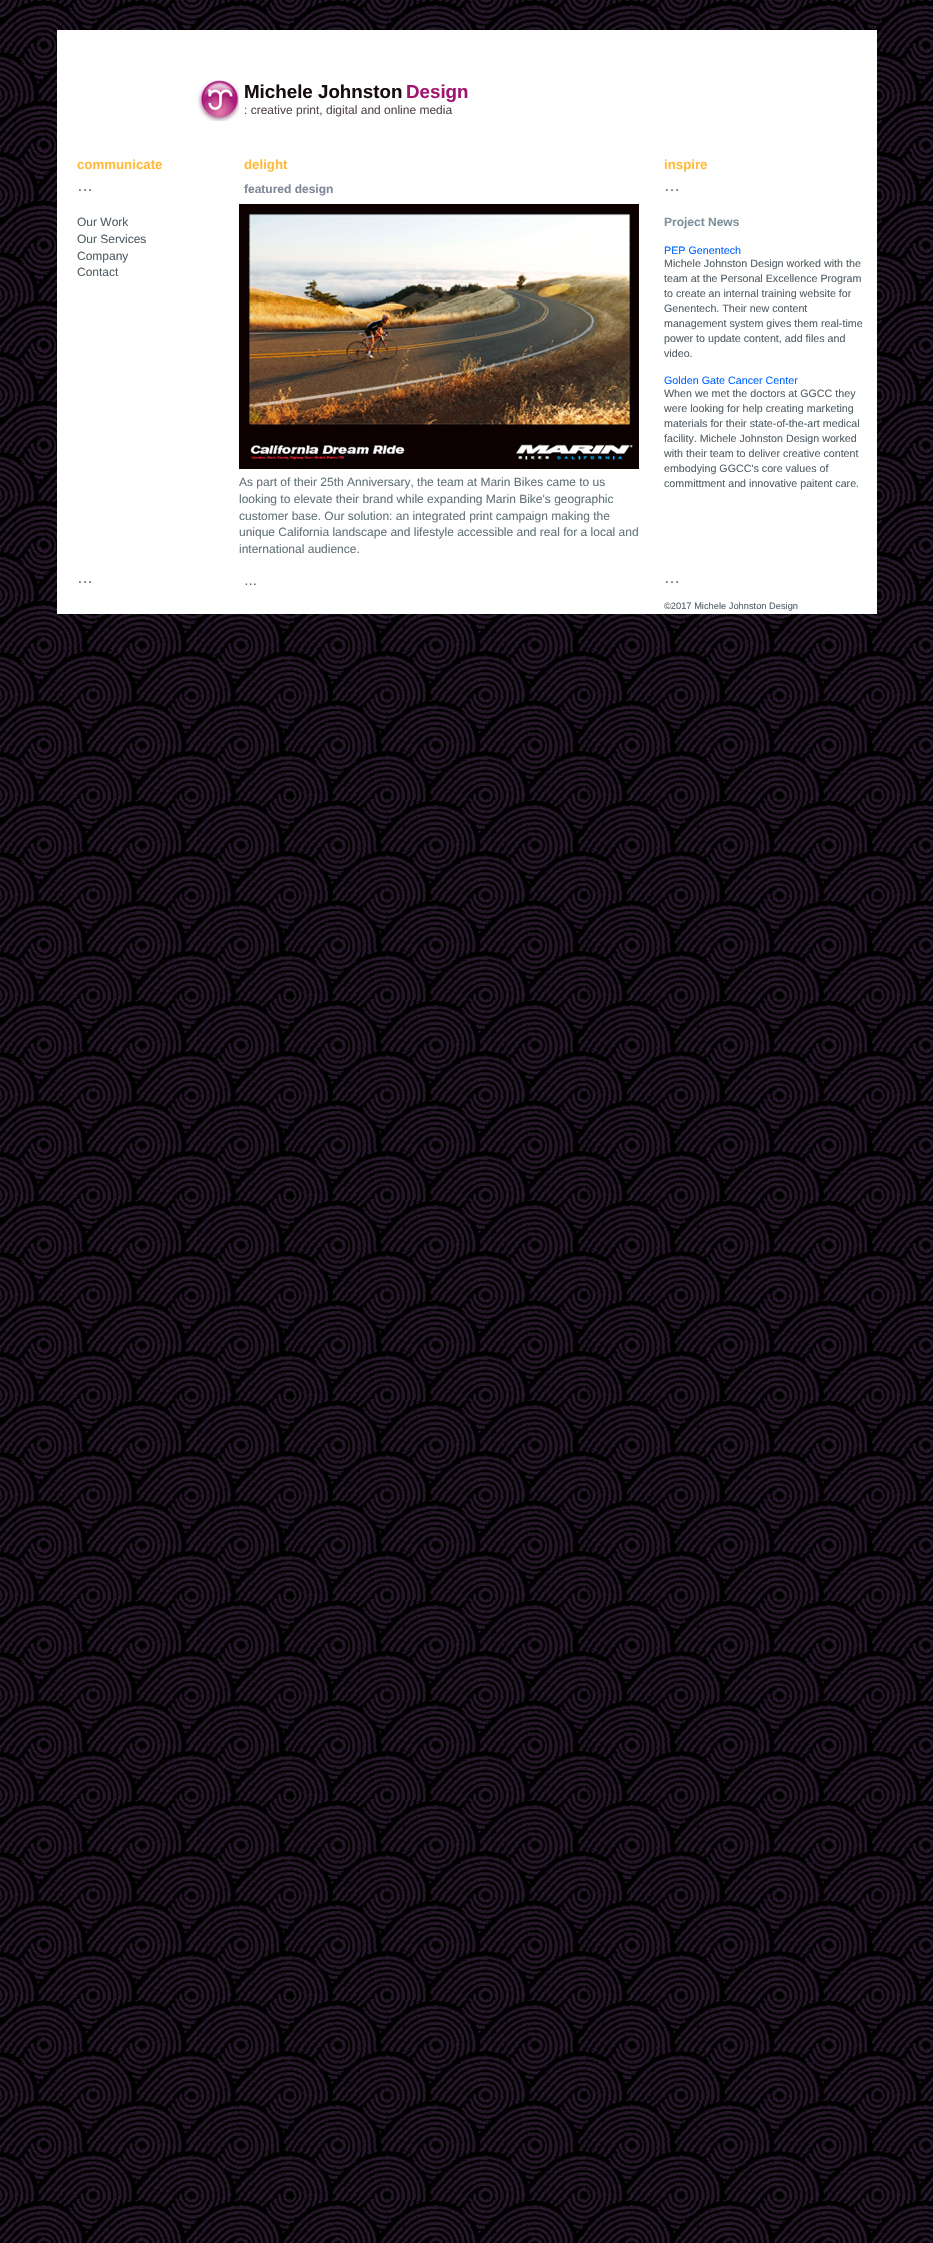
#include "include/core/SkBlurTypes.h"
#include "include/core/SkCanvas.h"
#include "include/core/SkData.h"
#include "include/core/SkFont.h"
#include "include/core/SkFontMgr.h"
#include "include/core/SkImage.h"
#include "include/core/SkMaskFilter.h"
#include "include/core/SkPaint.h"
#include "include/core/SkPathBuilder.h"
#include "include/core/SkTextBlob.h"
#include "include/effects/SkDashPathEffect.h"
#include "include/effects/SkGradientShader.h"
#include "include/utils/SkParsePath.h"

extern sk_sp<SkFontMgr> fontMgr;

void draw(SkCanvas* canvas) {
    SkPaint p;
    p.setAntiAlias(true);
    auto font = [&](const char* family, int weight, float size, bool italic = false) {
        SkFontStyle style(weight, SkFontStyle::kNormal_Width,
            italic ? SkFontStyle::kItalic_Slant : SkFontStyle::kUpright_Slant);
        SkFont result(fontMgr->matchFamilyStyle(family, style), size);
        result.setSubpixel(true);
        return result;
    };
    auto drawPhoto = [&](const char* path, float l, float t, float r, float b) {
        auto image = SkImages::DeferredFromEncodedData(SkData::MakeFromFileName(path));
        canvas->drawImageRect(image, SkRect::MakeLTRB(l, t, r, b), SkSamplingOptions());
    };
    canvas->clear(0xFFFFFFFF);
    drawPhoto("media/1.png", 0, 0, 933, 2243);
    p.setColor(0xFFFFFFFF);
    canvas->drawRect(SkRect::MakeLTRB(57, 30, 877, 614), p);
    drawPhoto("media/2.png", 197, 80, 239, 121);
    auto font1 = font("Liberation Sans", 700, 18.75f);
    p.setColor(0xFF150B10);
    canvas->drawString("Michele Johnston", 244, 98, font1, p);
    p.setColor(0xFFA0166F);
    canvas->drawString("Design", 406, 98, font1, p);
    auto font2 = font("Liberation Sans", 400, 12);
    p.setColor(0xFF564952);
    canvas->drawString(": creative print, digital and online media", 244, 114, font2, p);
    auto font3 = font("Liberation Sans", 700, 13.25f);
    p.setColor(0xFFFFBB3D);
    {
        const struct { const char* s; float x, y; } items[] = {
            {"communicate", 77, 169},
            {"delight", 244, 169},
            {"inspire", 664, 169},
        };
        for (auto [s, x, y] : items) {
            canvas->drawString(s, x, y, font3, p);
        }
    }
    auto font4 = font("Liberation Sans", 400, 16);
    p.setColor(0xFF666666);
    canvas->drawString("…", 77, 191, font4, p);
    auto font5 = font("Liberation Sans", 700, 12);
    p.setColor(0xFF7F8897);
    canvas->drawString("featured design", 244, 193, font5, p);
    p.setColor(0xFF666666);
    canvas->drawString("…", 664, 191, font4, p);
    p.setColor(0xFF545F66);
    {
        const struct { const char* s; float x, y; } items[] = {
            {"Our Work", 77, 226},
            {"Our Services", 77, 243},
            {"Company", 77, 260},
            {"Contact", 77, 276},
        };
        for (auto [s, x, y] : items) {
            canvas->drawString(s, x, y, font2, p);
        }
    }
    drawPhoto("media/3.png", 239, 204, 639, 469);
    p.setColor(0xFF7F919D);
    canvas->drawString("Project News", 664, 226, font5, p);
    auto font6 = font("Liberation Sans", 400, 10.75f);
    p.setColor(0xFF0066FF);
    canvas->drawString("PEP Genentech", 664, 254, font6, p);
    auto font7 = font("Liberation Sans", 400, 10.7f);
    p.setColor(0xFF545F66);
    {
        const struct { const char* s; float x, y; } items[] = {
            {"Michele Johnston Design worked with the", 664, 267},
            {"team at the Personal Excellence Program", 664, 282},
            {"to create an internal training website for", 664, 297},
            {"Genentech. Their new content", 664, 312},
            {"management system gives them real-time", 664, 327},
            {"power to update content, add files and", 664, 342},
            {"video.", 664, 357},
        };
        for (auto [s, x, y] : items) {
            canvas->drawString(s, x, y, font7, p);
        }
    }
    p.setColor(0xFF0066FF);
    canvas->drawString("Golden Gate Cancer Center", 664, 384, font6, p);
    p.setColor(0xFF545F66);
    {
        const struct { const char* s; float x, y; } items[] = {
            {"When we met the doctors at GGCC they", 664, 397},
            {"were looking for help creating marketing", 664, 412},
            {"materials for their state-of-the-art medical", 664, 427},
            {"facility. Michele Johnston Design worked", 664, 442},
            {"with their team to deliver creative content", 664, 457},
            {"embodying GGCC's core values of", 664, 472},
            {"committment and innovative paitent care.", 664, 487},
        };
        for (auto [s, x, y] : items) {
            canvas->drawString(s, x, y, font7, p);
        }
    }
    p.setColor(0xFF637378);
    {
        const struct { const char* s; float x, y; } items[] = {
            {"As part of their 25th Anniversary, the team at Marin Bikes came to us", 239, 486},
            {"looking to elevate their brand while expanding Marin Bike's geographic", 239, 503},
            {"customer base. Our solution: an integrated print campaign making the", 239, 520},
            {"unique California landscape and lifestyle accessible and real for a local and", 239, 536},
            {"international audience.", 239, 553},
        };
        for (auto [s, x, y] : items) {
            canvas->drawString(s, x, y, font2, p);
        }
    }
    p.setColor(0xFF666666);
    canvas->drawString("…", 77, 583, font4, p);
    canvas->drawString("…", 664, 583, font4, p);
    auto font8 = font("Liberation Sans", 400, 13.25f);
    p.setColor(0xFF545F66);
    canvas->drawString("…", 244, 585, font8, p);
    auto font9 = font("Liberation Sans", 400, 9.3f);
    canvas->drawString("©2017 Michele Johnston Design", 664, 609, font9, p);
}
